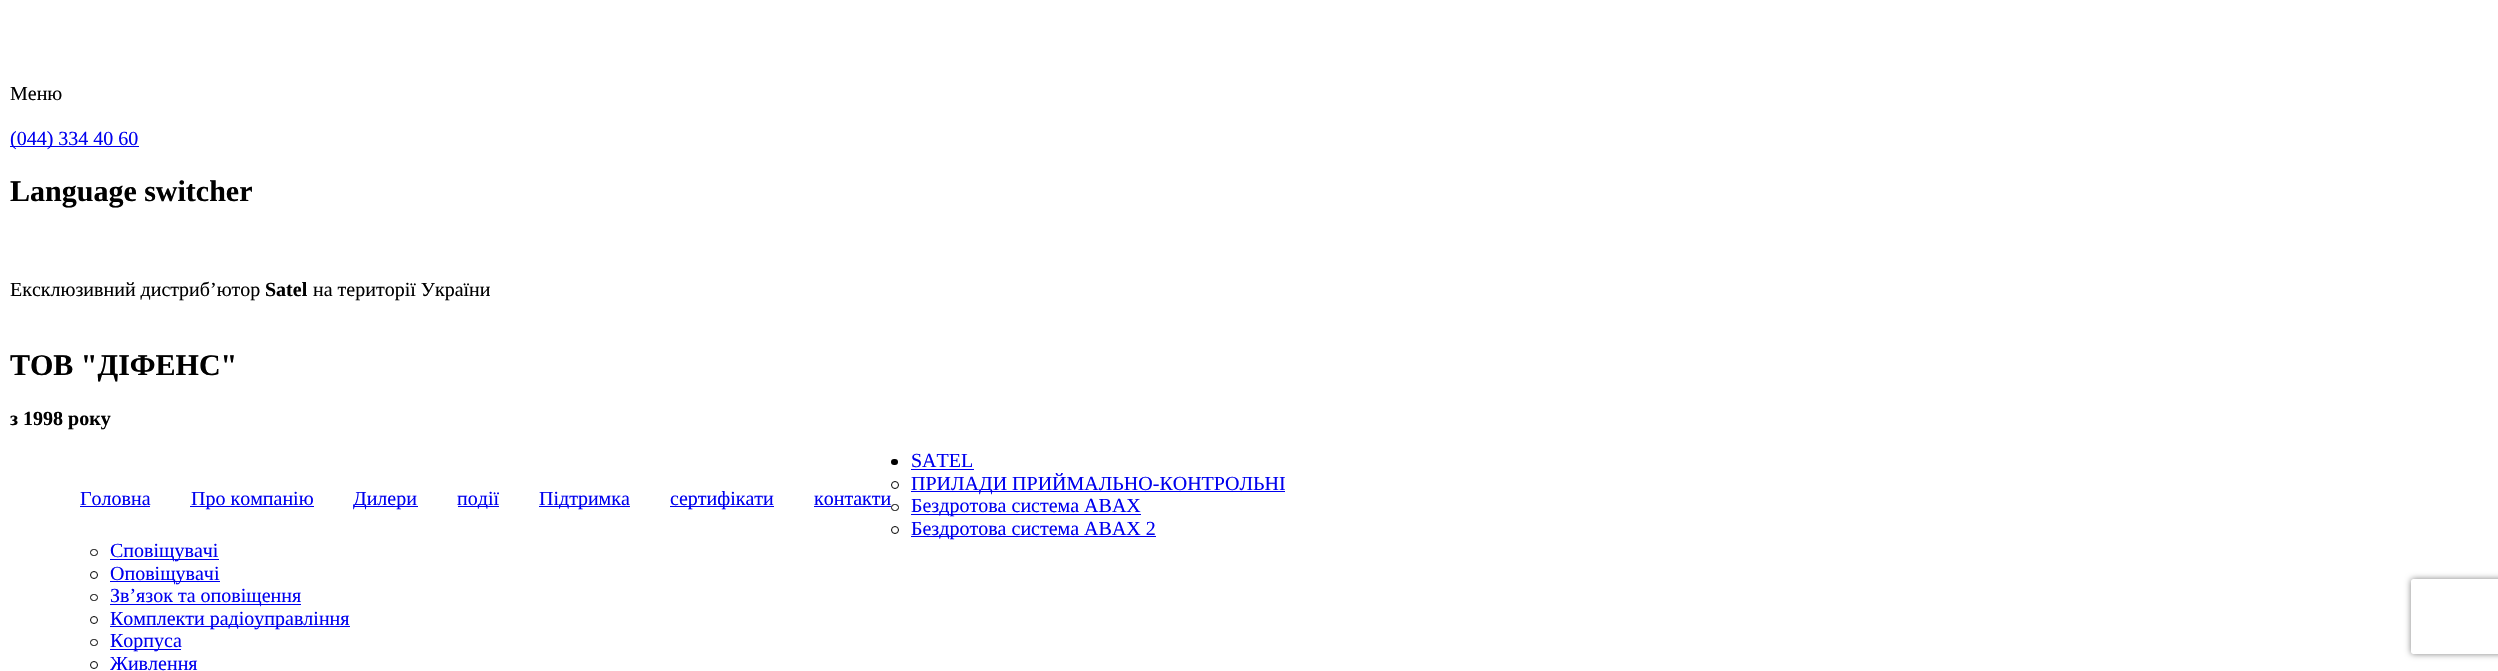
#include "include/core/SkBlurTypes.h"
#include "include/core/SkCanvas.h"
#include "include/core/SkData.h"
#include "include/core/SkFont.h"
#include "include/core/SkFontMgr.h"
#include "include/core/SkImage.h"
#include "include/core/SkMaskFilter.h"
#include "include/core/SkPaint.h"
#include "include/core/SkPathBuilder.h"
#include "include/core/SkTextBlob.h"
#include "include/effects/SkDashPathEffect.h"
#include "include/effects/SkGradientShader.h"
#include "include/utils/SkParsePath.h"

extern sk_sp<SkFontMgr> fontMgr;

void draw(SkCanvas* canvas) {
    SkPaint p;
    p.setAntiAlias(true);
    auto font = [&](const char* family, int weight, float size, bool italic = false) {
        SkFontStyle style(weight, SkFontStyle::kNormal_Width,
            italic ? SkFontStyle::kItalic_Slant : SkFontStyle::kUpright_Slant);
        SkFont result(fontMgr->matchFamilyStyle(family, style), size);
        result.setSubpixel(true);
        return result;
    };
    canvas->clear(0xFFFFFFFF);
    auto font1 = font("Liberation Serif", 400, 20);
    p.setColor(0xFF000000);
    canvas->drawString("Меню", 10, 100, font1, p);
    p.setColor(0xFF0000EE);
    canvas->drawRect(SkRect::MakeLTRB(10, 146, 139, 147), p);
    canvas->drawString("(044) 334 40 60", 10, 145, font1, p);
    auto font2 = font("Liberation Serif", 700, 30);
    p.setColor(0xFF000000);
    canvas->drawString("Language switcher", 10, 201, font2, p);
    canvas->drawString("Ексклюзивний дистриб’ютор", 10, 296, font1, p);
    auto font3 = font("Liberation Serif", 700, 20);
    canvas->drawString("Satel", 265, 296, font3, p);
    canvas->drawString("на території України", 313, 296, font1, p);
    canvas->drawString("ТОВ \"ДІФЕНС\"", 10, 375, font2, p);
    canvas->drawString("з 1998 року", 10, 425, font3, p);
    canvas->drawRoundRect(SkRect::MakeLTRB(891, 459, 898, 465), 3, 3, p);
    p.setColor(0xFF0000EE);
    canvas->drawString("SATEL", 911, 467, font1, p);
    canvas->drawRect(SkRect::MakeLTRB(911, 469, 974, 470), p);
    p.setStyle(SkPaint::kStroke_Style);
    p.setStrokeWidth(1);
    p.setColor(0xFF000000);
    canvas->drawCircle(895, 485, 3.5f, p);
    p.setStyle(SkPaint::kFill_Style);
    p.setColor(0xFF0000EE);
    canvas->drawRect(SkRect::MakeLTRB(911, 491, 1285, 492), p);
    canvas->drawString("ПРИЛАДИ ПРИЙМАЛЬНО-КОНТРОЛЬНІ", 911, 490, font1, p);
    p.setStyle(SkPaint::kStroke_Style);
    p.setColor(0xFF000000);
    canvas->drawRoundRect(SkRect::MakeLTRB(891.5f, 504.5f, 898.5f, 510.5f), 3, 3, p);
    p.setStyle(SkPaint::kFill_Style);
    p.setColor(0xFF0000EE);
    canvas->drawRect(SkRect::MakeLTRB(911, 514, 1141, 515), p);
    canvas->drawString("Бездротова система ABAX", 911, 512, font1, p);
    p.setStyle(SkPaint::kStroke_Style);
    p.setColor(0xFF000000);
    canvas->drawCircle(895, 530, 3.5f, p);
    p.setStyle(SkPaint::kFill_Style);
    p.setColor(0xFF0000EE);
    canvas->drawRect(SkRect::MakeLTRB(911, 536, 1156, 537), p);
    canvas->drawString("Бездротова система ABAX 2", 911, 535, font1, p);
    p.setStyle(SkPaint::kStroke_Style);
    p.setColor(0xFF000000);
    canvas->drawRoundRect(SkRect::MakeLTRB(90.5f, 549.5f, 97.5f, 555.5f), 3, 3, p);
    p.setStyle(SkPaint::kFill_Style);
    p.setColor(0xFF0000EE);
    canvas->drawRect(SkRect::MakeLTRB(110, 559, 219, 560), p);
    canvas->drawString("Сповіщувачі", 110, 557, font1, p);
    p.setStyle(SkPaint::kStroke_Style);
    p.setColor(0xFF000000);
    canvas->drawCircle(94, 575, 3.5f, p);
    p.setStyle(SkPaint::kFill_Style);
    p.setColor(0xFF0000EE);
    canvas->drawRect(SkRect::MakeLTRB(110, 581, 220, 582), p);
    canvas->drawString("Оповіщувачі", 110, 580, font1, p);
    p.setStyle(SkPaint::kStroke_Style);
    p.setColor(0xFF000000);
    canvas->drawRoundRect(SkRect::MakeLTRB(90.5f, 594.5f, 97.5f, 600.5f), 3, 3, p);
    p.setStyle(SkPaint::kFill_Style);
    p.setColor(0xFF0000EE);
    canvas->drawRect(SkRect::MakeLTRB(110, 604, 301, 605), p);
    canvas->drawString("Зв’язок та оповіщення", 110, 602, font1, p);
    p.setStyle(SkPaint::kStroke_Style);
    p.setColor(0xFF000000);
    canvas->drawCircle(94, 620, 3.5f, p);
    p.setStyle(SkPaint::kFill_Style);
    p.setColor(0xFF0000EE);
    canvas->drawRect(SkRect::MakeLTRB(110, 626, 350, 627), p);
    canvas->drawString("Комплекти радіоуправління", 110, 625, font1, p);
    p.setStyle(SkPaint::kStroke_Style);
    p.setColor(0xFF000000);
    canvas->drawRoundRect(SkRect::MakeLTRB(90.5f, 639.5f, 97.5f, 645.5f), 3, 3, p);
    p.setStyle(SkPaint::kFill_Style);
    p.setColor(0xFF0000EE);
    canvas->drawRect(SkRect::MakeLTRB(110, 649, 181, 650), p);
    canvas->drawString("Корпуса", 110, 647, font1, p);
    p.setStyle(SkPaint::kStroke_Style);
    p.setColor(0xFF000000);
    canvas->drawCircle(94, 665, 3.5f, p);
    p.setStyle(SkPaint::kFill_Style);
    p.setColor(0xFF0000EE);
    canvas->drawString("Живлення", 110, 670, font1, p);
    canvas->drawString("Головна", 80, 505, font1, p);
    canvas->drawRect(SkRect::MakeLTRB(80, 506, 150, 507), p);
    canvas->drawRect(SkRect::MakeLTRB(190, 506, 314, 507), p);
    canvas->drawString("Про компанію", 191, 505, font1, p);
    canvas->drawRect(SkRect::MakeLTRB(354, 506, 418, 507), p);
    canvas->drawString("Дилери", 353, 505, font1, p);
    canvas->drawRect(SkRect::MakeLTRB(458, 506, 499, 507), p);
    canvas->drawString("події", 457, 505, font1, p);
    canvas->drawRect(SkRect::MakeLTRB(539, 506, 630, 507), p);
    canvas->drawString("Підтримка", 539, 505, font1, p);
    canvas->drawRect(SkRect::MakeLTRB(670, 506, 774, 507), p);
    canvas->drawString("сертифікати", 670, 505, font1, p);
    canvas->drawString("контакти", 814, 505, font1, p);
    canvas->drawRect(SkRect::MakeLTRB(814, 506, 891, 507), p);
    canvas->save();
    canvas->clipPath(SkPathBuilder(SkPathFillType::kEvenOdd).moveTo(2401, 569).lineTo(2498, 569).lineTo(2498, 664).lineTo(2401, 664).close().moveTo(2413.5f, 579).lineTo(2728.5f, 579).cubicTo(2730, 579, 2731, 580, 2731, 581.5f).lineTo(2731, 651.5f).cubicTo(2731, 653, 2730, 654, 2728.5f, 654).lineTo(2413.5f, 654).cubicTo(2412, 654, 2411, 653, 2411, 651.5f).lineTo(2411, 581.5f).cubicTo(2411, 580, 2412, 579, 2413.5f, 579).close().detach(), true);
    p.setColor(0xFF808080);
    p.setMaskFilter(SkMaskFilter::MakeBlur(kNormal_SkBlurStyle, 3));
    canvas->drawRoundRect(SkRect::MakeLTRB(2411, 579, 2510, 654), 2.5f, 2.5f, p);
    p.setMaskFilter(nullptr);
    canvas->restore();
}
